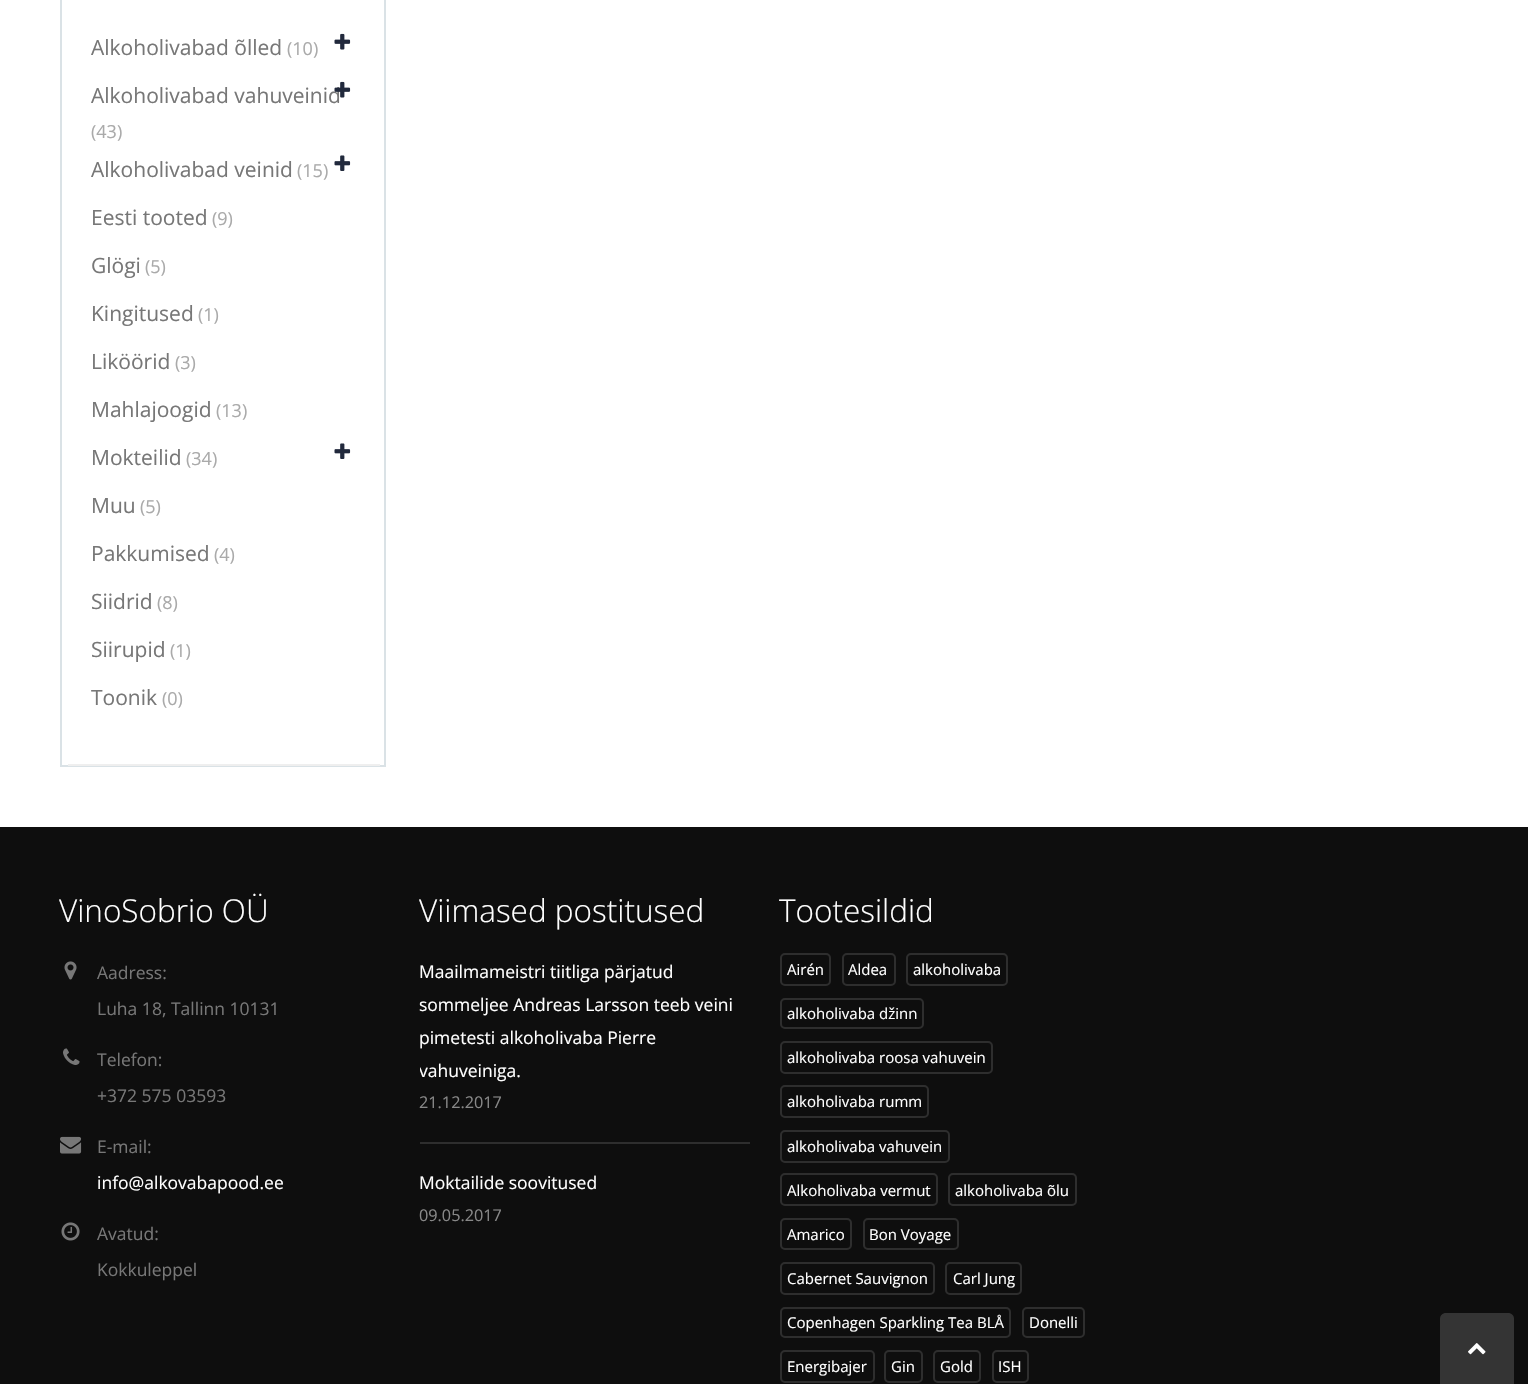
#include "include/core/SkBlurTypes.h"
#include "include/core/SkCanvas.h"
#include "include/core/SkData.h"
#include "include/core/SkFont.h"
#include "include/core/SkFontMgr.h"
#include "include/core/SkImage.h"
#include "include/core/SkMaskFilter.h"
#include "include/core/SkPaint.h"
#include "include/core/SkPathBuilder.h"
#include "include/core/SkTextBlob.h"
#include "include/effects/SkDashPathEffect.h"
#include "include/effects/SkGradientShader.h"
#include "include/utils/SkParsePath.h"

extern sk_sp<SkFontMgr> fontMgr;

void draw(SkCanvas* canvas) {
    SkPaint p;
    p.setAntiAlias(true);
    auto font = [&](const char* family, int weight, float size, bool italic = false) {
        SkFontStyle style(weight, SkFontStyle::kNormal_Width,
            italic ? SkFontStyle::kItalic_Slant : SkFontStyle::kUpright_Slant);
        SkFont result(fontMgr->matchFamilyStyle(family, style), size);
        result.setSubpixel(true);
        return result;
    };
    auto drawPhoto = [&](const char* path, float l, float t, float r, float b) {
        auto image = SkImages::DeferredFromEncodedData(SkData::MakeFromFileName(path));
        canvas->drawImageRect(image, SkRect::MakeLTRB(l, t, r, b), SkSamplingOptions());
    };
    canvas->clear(0xFFFFFFFF);
    p.setStyle(SkPaint::kStroke_Style);
    p.setStrokeWidth(2);
    p.setColor(0xFFDAE2E6);
    canvas->drawRect(SkRect::MakeLTRB(61, -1, 385, 766), p);
    p.setStyle(SkPaint::kFill_Style);
    p.setColor(0xFFEFEFEF);
    canvas->drawRect(SkRect::MakeLTRB(68, 764, 380, 766), p);
    auto font1 = font("Open Sans", 400, 21);
    p.setColor(0xFF777777);
    canvas->drawString("Alkoholivabad õlled", 91, 55, font1, p);
    auto font2 = font("Open Sans", 400, 18);
    p.setColor(0xFFAAAAAA);
    canvas->drawString("(10)", 287, 55, font2, p);
    drawPhoto("media/1.png", 334, 33, 351, 50);
    p.setColor(0xFF777777);
    canvas->drawString("Alkoholivabad vahuveinid", 91, 103, font1, p);
    drawPhoto("media/2.png", 334, 81, 351, 98);
    p.setColor(0xFFAAAAAA);
    canvas->drawString("(43)", 91, 138, font2, p);
    p.setColor(0xFF777777);
    canvas->drawString("Alkoholivabad veinid", 91, 177, font1, p);
    p.setColor(0xFFAAAAAA);
    canvas->drawString("(15)", 297, 177, font2, p);
    drawPhoto("media/3.png", 334, 155, 351, 171);
    p.setColor(0xFF777777);
    canvas->drawString("Eesti tooted", 91, 225, font1, p);
    p.setColor(0xFFAAAAAA);
    canvas->drawString("(9)", 212, 225, font2, p);
    p.setColor(0xFF777777);
    canvas->drawString("Glögi", 91, 273, font1, p);
    p.setColor(0xFFAAAAAA);
    canvas->drawString("(5)", 145, 273, font2, p);
    p.setColor(0xFF777777);
    canvas->drawString("Kingitused", 91, 321, font1, p);
    p.setColor(0xFFAAAAAA);
    canvas->drawString("(1)", 198, 321, font2, p);
    p.setColor(0xFF777777);
    canvas->drawString("Liköörid", 91, 369, font1, p);
    p.setColor(0xFFAAAAAA);
    canvas->drawString("(3)", 175, 369, font2, p);
    p.setColor(0xFF777777);
    canvas->drawString("Mahlajoogid", 91, 417, font1, p);
    p.setColor(0xFFAAAAAA);
    canvas->drawString("(13)", 216, 417, font2, p);
    p.setColor(0xFF777777);
    canvas->drawString("Mokteilid", 91, 465, font1, p);
    p.setColor(0xFFAAAAAA);
    canvas->drawString("(34)", 186, 465, font2, p);
    drawPhoto("media/3.png", 334, 443, 351, 459);
    p.setColor(0xFF777777);
    canvas->drawString("Muu", 91, 513, font1, p);
    p.setColor(0xFFAAAAAA);
    canvas->drawString("(5)", 140, 513, font2, p);
    p.setColor(0xFF777777);
    canvas->drawString("Pakkumised", 91, 561, font1, p);
    p.setColor(0xFFAAAAAA);
    canvas->drawString("(4)", 214, 561, font2, p);
    p.setColor(0xFF777777);
    canvas->drawString("Siidrid", 91, 609, font1, p);
    p.setColor(0xFFAAAAAA);
    canvas->drawString("(8)", 157, 609, font2, p);
    p.setColor(0xFF777777);
    canvas->drawString("Siirupid", 91, 657, font1, p);
    p.setColor(0xFFAAAAAA);
    canvas->drawString("(1)", 170, 657, font2, p);
    p.setColor(0xFF777777);
    canvas->drawString("Toonik", 91, 705, font1, p);
    p.setColor(0xFFAAAAAA);
    canvas->drawString("(0)", 162, 705, font2, p);
    p.setColor(0xFF0E0E0E);
    canvas->drawRect(SkRect::MakeLTRB(0, 827, 1528, 1384), p);
    auto font3 = font("Open Sans", 300, 31.5f);
    p.setColor(0xFFFFFFFF);
    canvas->drawString("VinoSobrio OÜ", 59, 922, font3, p);
    drawPhoto("media/4.png", 64, 961, 77, 980);
    auto font4 = font("Open Sans", 400, 17.5f);
    p.setColor(0xFF777777);
    canvas->drawString("Aadress:", 97, 979, font4, p);
    canvas->drawString("Luha 18, Tallinn 10131", 97, 1015, font4, p);
    drawPhoto("media/5.png", 63, 1048, 80, 1065);
    canvas->drawString("Telefon:", 97, 1066, font4, p);
    canvas->drawString("+372 575 03593", 97, 1102, font4, p);
    drawPhoto("media/6.png", 60, 1136, 82, 1154);
    canvas->drawString("E-mail:", 97, 1153, font4, p);
    p.setColor(0xFFFFFFFF);
    canvas->drawString("info@alkovabapood.ee", 97, 1189, font4, p);
    drawPhoto("media/7.png", 61, 1222, 80, 1241);
    p.setColor(0xFF777777);
    canvas->drawString("Avatud:", 97, 1240, font4, p);
    canvas->drawString("Kokkuleppel", 97, 1276, font4, p);
    p.setColor(0xFFFFFFFF);
    canvas->drawString("Viimased postitused", 419, 922, font3, p);
    {
        const struct { const char* s; float x, y; } items[] = {
            {"Maailmameistri tiitliga pärjatud", 419, 978},
            {"sommeljee Andreas Larsson teeb veini", 419, 1011},
            {"pimetesti alkoholivaba Pierre", 419, 1044},
        };
        for (auto [s, x, y] : items) {
            canvas->drawString(s, x, y, font4, p);
        }
    }
    canvas->save();
    canvas->clipRect(SkRect::MakeLTRB(420, 887, 750, 1254));
    canvas->drawString("vahuveiniga.", 419, 1077, font4, p);
    canvas->restore();
    auto font5 = font("Open Sans", 400, 16.25f);
    p.setColor(0xFF888888);
    canvas->drawString("21.12.2017", 419, 1108, font5, p);
    p.setColor(0xFF2E2E2E);
    canvas->drawRect(SkRect::MakeLTRB(420, 1142, 750, 1144), p);
    p.setColor(0xFFFFFFFF);
    canvas->drawString("Moktailide soovitused", 419, 1189, font4, p);
    p.setColor(0xFF888888);
    canvas->drawString("09.05.2017", 419, 1221, font5, p);
    p.setColor(0xFFFFFFFF);
    canvas->drawString("Tootesildid", 779, 922, font3, p);
    p.setStyle(SkPaint::kStroke_Style);
    p.setColor(0xFF2E2E2E);
    canvas->drawRoundRect(SkRect::MakeLTRB(781, 954, 830, 985), 4, 4, p);
    auto font6 = font("Open Sans", 400, 15);
    p.setStyle(SkPaint::kFill_Style);
    p.setColor(0xFFFFFFFF);
    canvas->drawString("Airén", 787, 975, font6, p);
    p.setStyle(SkPaint::kStroke_Style);
    p.setColor(0xFF2E2E2E);
    canvas->drawRoundRect(SkRect::MakeLTRB(843, 954, 895, 985), 4, 4, p);
    p.setStyle(SkPaint::kFill_Style);
    p.setColor(0xFFFFFFFF);
    canvas->drawString("Aldea", 848, 975, font6, p);
    p.setStyle(SkPaint::kStroke_Style);
    p.setColor(0xFF2E2E2E);
    canvas->drawRoundRect(SkRect::MakeLTRB(907, 954, 1007, 985), 4, 4, p);
    p.setStyle(SkPaint::kFill_Style);
    p.setColor(0xFFFFFFFF);
    canvas->drawString("alkoholivaba", 913, 975, font6, p);
    p.setStyle(SkPaint::kStroke_Style);
    p.setColor(0xFF2E2E2E);
    canvas->drawRoundRect(SkRect::MakeLTRB(781, 999, 923, 1028), 4, 4, p);
    p.setStyle(SkPaint::kFill_Style);
    p.setColor(0xFFFFFFFF);
    canvas->drawString("alkoholivaba džinn", 787, 1019, font6, p);
    p.setStyle(SkPaint::kStroke_Style);
    p.setColor(0xFF2E2E2E);
    canvas->drawRoundRect(SkRect::MakeLTRB(781, 1042, 992, 1073), 4, 4, p);
    p.setStyle(SkPaint::kFill_Style);
    p.setColor(0xFFFFFFFF);
    canvas->drawString("alkoholivaba roosa vahuvein", 787, 1063, font6, p);
    p.setStyle(SkPaint::kStroke_Style);
    p.setColor(0xFF2E2E2E);
    canvas->drawRoundRect(SkRect::MakeLTRB(781, 1086, 928, 1117), 4, 4, p);
    p.setStyle(SkPaint::kFill_Style);
    p.setColor(0xFFFFFFFF);
    canvas->drawString("alkoholivaba rumm", 787, 1107, font6, p);
    p.setStyle(SkPaint::kStroke_Style);
    p.setColor(0xFF2E2E2E);
    canvas->drawRoundRect(SkRect::MakeLTRB(781, 1131, 949, 1162), 4, 4, p);
    p.setStyle(SkPaint::kFill_Style);
    p.setColor(0xFFFFFFFF);
    canvas->drawString("alkoholivaba vahuvein", 787, 1152, font6, p);
    p.setStyle(SkPaint::kStroke_Style);
    p.setColor(0xFF2E2E2E);
    canvas->drawRoundRect(SkRect::MakeLTRB(781, 1174, 937, 1205), 4, 4, p);
    p.setStyle(SkPaint::kFill_Style);
    p.setColor(0xFFFFFFFF);
    canvas->drawString("Alkoholivaba vermut", 787, 1196, font6, p);
    p.setStyle(SkPaint::kStroke_Style);
    p.setColor(0xFF2E2E2E);
    canvas->drawRoundRect(SkRect::MakeLTRB(949, 1174, 1076, 1205), 4, 4, p);
    p.setStyle(SkPaint::kFill_Style);
    p.setColor(0xFFFFFFFF);
    canvas->drawString("alkoholivaba õlu", 955, 1196, font6, p);
    p.setStyle(SkPaint::kStroke_Style);
    p.setColor(0xFF2E2E2E);
    canvas->drawRoundRect(SkRect::MakeLTRB(781, 1219, 851, 1249), 4, 4, p);
    p.setStyle(SkPaint::kFill_Style);
    p.setColor(0xFFFFFFFF);
    canvas->drawString("Amarico", 787, 1240, font6, p);
    p.setStyle(SkPaint::kStroke_Style);
    p.setColor(0xFF2E2E2E);
    canvas->drawRoundRect(SkRect::MakeLTRB(864, 1219, 958, 1249), 4, 4, p);
    p.setStyle(SkPaint::kFill_Style);
    p.setColor(0xFFFFFFFF);
    canvas->drawString("Bon Voyage", 869, 1240, font6, p);
    p.setStyle(SkPaint::kStroke_Style);
    p.setColor(0xFF2E2E2E);
    canvas->drawRoundRect(SkRect::MakeLTRB(781, 1263, 934, 1294), 4, 4, p);
    p.setStyle(SkPaint::kFill_Style);
    p.setColor(0xFFFFFFFF);
    canvas->drawString("Cabernet Sauvignon", 787, 1284, font6, p);
    p.setStyle(SkPaint::kStroke_Style);
    p.setColor(0xFF2E2E2E);
    canvas->drawRoundRect(SkRect::MakeLTRB(946, 1263, 1021, 1294), 4, 4, p);
    p.setStyle(SkPaint::kFill_Style);
    p.setColor(0xFFFFFFFF);
    canvas->drawString("Carl Jung", 953, 1284, font6, p);
    p.setStyle(SkPaint::kStroke_Style);
    p.setColor(0xFF2E2E2E);
    canvas->drawRoundRect(SkRect::MakeLTRB(781, 1308, 1010, 1337), 4, 4, p);
    p.setStyle(SkPaint::kFill_Style);
    p.setColor(0xFFFFFFFF);
    canvas->drawString("Copenhagen Sparkling Tea BLÅ", 787, 1328, font6, p);
    p.setStyle(SkPaint::kStroke_Style);
    p.setColor(0xFF2E2E2E);
    canvas->drawRoundRect(SkRect::MakeLTRB(1023, 1308, 1084, 1337), 4, 4, p);
    p.setStyle(SkPaint::kFill_Style);
    p.setColor(0xFFFFFFFF);
    canvas->drawString("Donelli", 1029, 1328, font6, p);
    p.setStyle(SkPaint::kStroke_Style);
    p.setColor(0xFF2E2E2E);
    canvas->drawRoundRect(SkRect::MakeLTRB(781, 1351, 874, 1382), 4, 4, p);
    p.setStyle(SkPaint::kFill_Style);
    p.setColor(0xFFFFFFFF);
    canvas->drawString("Energibajer", 787, 1372, font6, p);
    p.setStyle(SkPaint::kStroke_Style);
    p.setColor(0xFF2E2E2E);
    canvas->drawRoundRect(SkRect::MakeLTRB(885, 1351, 922, 1382), 4, 4, p);
    p.setStyle(SkPaint::kFill_Style);
    p.setColor(0xFFFFFFFF);
    canvas->drawString("Gin", 891, 1372, font6, p);
    p.setStyle(SkPaint::kStroke_Style);
    p.setColor(0xFF2E2E2E);
    canvas->drawRoundRect(SkRect::MakeLTRB(934, 1351, 980, 1382), 4, 4, p);
    p.setStyle(SkPaint::kFill_Style);
    p.setColor(0xFFFFFFFF);
    canvas->drawString("Gold", 940, 1372, font6, p);
    p.setStyle(SkPaint::kStroke_Style);
    p.setColor(0xFF2E2E2E);
    canvas->drawRoundRect(SkRect::MakeLTRB(993, 1351, 1028, 1382), 4, 4, p);
    p.setStyle(SkPaint::kFill_Style);
    p.setColor(0xFFFFFFFF);
    canvas->drawString("ISH", 998, 1372, font6, p);
    p.setColor(0xFF343434);
    canvas->drawPath(SkPathBuilder().moveTo(1446, 1313).lineTo(1508, 1313).cubicTo(1511.5f, 1313, 1514, 1315.5f, 1514, 1319).lineTo(1514, 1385).lineTo(1440, 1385).lineTo(1440, 1319).cubicTo(1440, 1315.5f, 1442.5f, 1313, 1446, 1313).close().detach(), p);
    drawPhoto("media/8.png", 1468, 1343, 1486, 1355);
}
